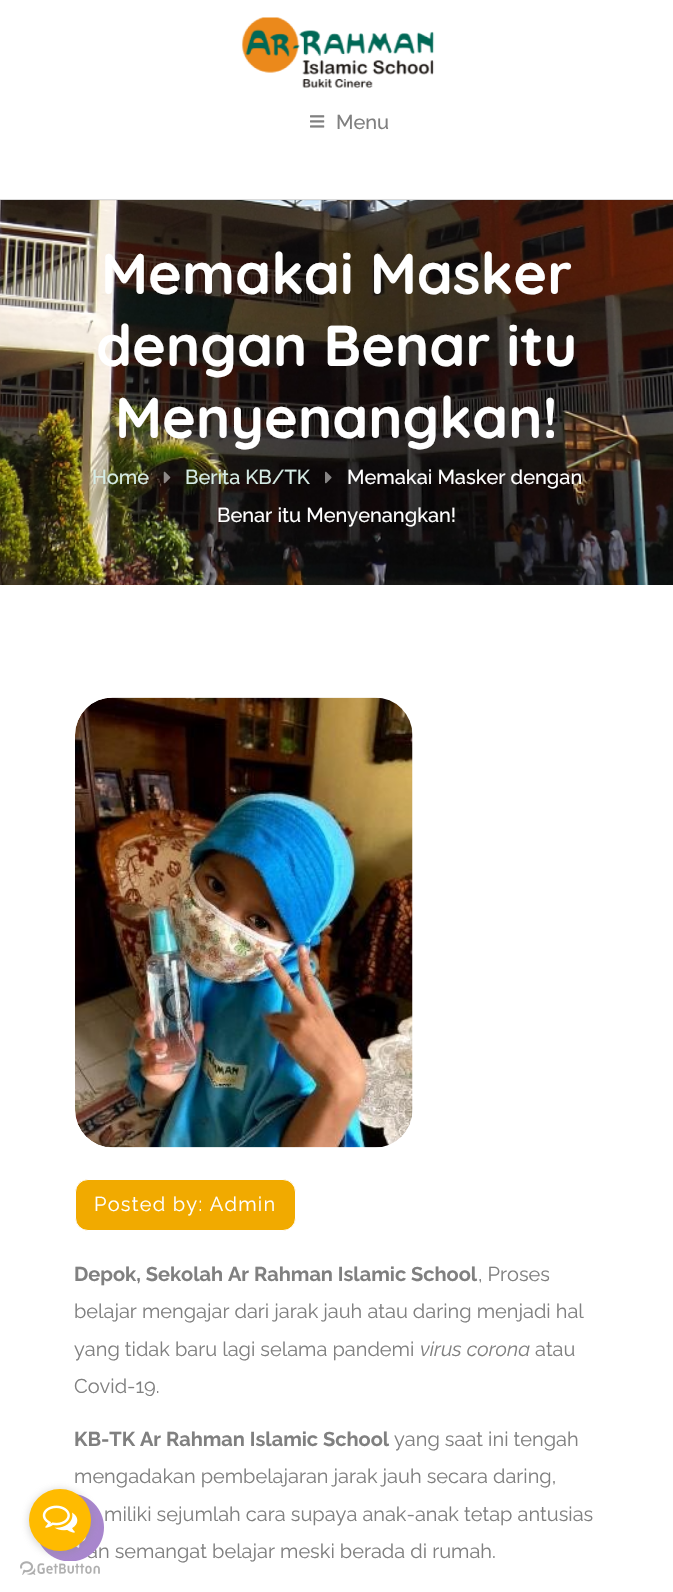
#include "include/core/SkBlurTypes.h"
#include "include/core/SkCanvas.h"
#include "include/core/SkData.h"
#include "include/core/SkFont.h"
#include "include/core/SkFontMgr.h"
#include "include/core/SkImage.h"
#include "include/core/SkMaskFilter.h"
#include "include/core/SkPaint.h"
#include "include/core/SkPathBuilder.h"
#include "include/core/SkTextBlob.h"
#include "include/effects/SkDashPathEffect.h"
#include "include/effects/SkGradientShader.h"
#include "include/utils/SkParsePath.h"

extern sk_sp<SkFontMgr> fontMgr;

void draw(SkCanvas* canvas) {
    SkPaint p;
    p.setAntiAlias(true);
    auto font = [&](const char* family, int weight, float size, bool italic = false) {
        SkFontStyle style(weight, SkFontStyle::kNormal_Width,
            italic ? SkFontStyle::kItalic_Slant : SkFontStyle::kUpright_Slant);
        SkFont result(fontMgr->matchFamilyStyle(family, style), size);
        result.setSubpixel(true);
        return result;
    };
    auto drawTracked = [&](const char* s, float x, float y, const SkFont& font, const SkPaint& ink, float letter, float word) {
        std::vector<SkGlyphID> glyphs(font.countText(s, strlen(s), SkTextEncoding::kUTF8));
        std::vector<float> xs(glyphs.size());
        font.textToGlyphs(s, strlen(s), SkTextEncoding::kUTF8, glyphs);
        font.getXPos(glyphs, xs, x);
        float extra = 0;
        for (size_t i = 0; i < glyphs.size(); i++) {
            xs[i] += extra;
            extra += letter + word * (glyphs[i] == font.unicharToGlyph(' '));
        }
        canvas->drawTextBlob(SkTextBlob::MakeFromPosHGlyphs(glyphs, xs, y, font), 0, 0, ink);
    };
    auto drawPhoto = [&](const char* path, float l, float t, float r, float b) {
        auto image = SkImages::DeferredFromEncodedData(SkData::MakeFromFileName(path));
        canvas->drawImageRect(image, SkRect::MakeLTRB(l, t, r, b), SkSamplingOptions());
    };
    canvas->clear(0xFFFFFFFF);
    auto font1 = font("Raleway", 400, 20);
    p.setColor(0xFF808080);
    canvas->drawString("an semangat belajar meski berada di rumah.", 87, 1558, font1, p);
    drawPhoto("media/2.png", 20, 1561, 100, 1575);
    drawPhoto("media/9.png", 38, 1494, 104, 1561);
    p.setColor(0x66888888);
    p.setMaskFilter(SkMaskFilter::MakeBlur(kNormal_SkBlurStyle, 4.5f));
    canvas->drawRoundRect(SkRect::MakeLTRB(29, 1490, 91, 1553), 31, 31, p);
    p.setMaskFilter(nullptr);
    p.setColor(0xFFFFBB00);
    canvas->drawCircle(60, 1520, 31, p);
    drawPhoto("media/1.png", 42, 1505, 78, 1533);
    drawPhoto("media/5.png", 0, 200, 673, 585);
    p.setColor(0x0D000000);
    canvas->drawPath(SkPathBuilder().moveTo(0, 200).lineTo(0, 201).lineTo(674, 201).lineTo(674, 1).lineTo(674, 200).close().detach(), p);
    p.setColor(0xFFDADADA);
    canvas->drawRect(SkRect::MakeLTRB(0, 199, 673, 200), p);
    drawPhoto("media/3.png", 241, 17, 435, 88);
    drawPhoto("media/4.png", 310, 115, 325, 128);
    auto font2 = font("Raleway", 500, 20);
    p.setColor(0xFF808080);
    canvas->drawString("Menu", 336, 129, font2, p);
    auto font3 = font("Quicksand", 700, 57.5f);
    p.setColor(0xFFFFFFFF);
    {
        const struct { const char* s; float x, y; } items[] = {
            {"Memakai Masker", 101, 294},
            {"dengan Benar itu", 96, 366},
            {"Menyenangkan!", 115, 438},
        };
        for (auto [s, x, y] : items) {
            canvas->drawString(s, x, y, font3, p);
        }
    }
    p.setColor(0xFFD6ECE5);
    canvas->drawString("Home", 92, 484, font2, p);
    drawPhoto("media/6.png", 163, 471, 171, 484);
    canvas->drawString("Berita KB/TK", 185, 484, font2, p);
    drawPhoto("media/7.png", 325, 471, 332, 484);
    p.setColor(0xFFFFFFFF);
    canvas->drawString("Memakai Masker dengan", 347, 484, font2, p);
    canvas->drawString("Benar itu Menyenangkan!", 217, 522, font2, p);
    drawPhoto("media/8.png", 75, 697, 413, 1148);
    p.setColor(0xFFF1AA00);
    canvas->drawRoundRect(SkRect::MakeLTRB(75.5f, 1179.5f, 295.5f, 1230.5f), 12.5f, 12.5f, p);
    p.setStyle(SkPaint::kStroke_Style);
    p.setStrokeWidth(1);
    p.setColor(0xFFFFFFFF);
    canvas->drawRoundRect(SkRect::MakeLTRB(75.5f, 1179.5f, 295.5f, 1230.5f), 12.5f, 12.5f, p);
    p.setStyle(SkPaint::kFill_Style);
    drawTracked("Posted by: Admin", 94, 1211, font1, p, 1.25f, 0);
    auto font4 = font("Raleway", 700, 20);
    p.setColor(0xFF808080);
    canvas->drawString("Depok, Sekolah Ar Rahman Islamic School", 74, 1281, font4, p);
    {
        const struct { const char* s; float x, y; } items[] = {
            {", Proses", 478, 1281},
            {"belajar mengajar dari jarak jauh atau daring menjadi hal", 74, 1318},
            {"yang tidak baru lagi selama pandemi", 74, 1356},
        };
        for (auto [s, x, y] : items) {
            canvas->drawString(s, x, y, font1, p);
        }
    }
    auto font5 = font("Raleway", 400, 20, true);
    canvas->drawString("virus corona", 420, 1356, font5, p);
    canvas->drawString("atau", 535, 1356, font1, p);
    canvas->drawString("Covid-19.", 74, 1393, font1, p);
    canvas->drawString("KB-TK Ar Rahman Islamic School", 74, 1446, font4, p);
    {
        const struct { const char* s; float x, y; } items[] = {
            {"yang saat ini tengah", 394, 1446},
            {"mengadakan pembelajaran jarak jauh secara daring,", 74, 1483},
            {"miliki sejumlah cara supaya anak-anak tetap antusias", 104, 1521},
        };
        for (auto [s, x, y] : items) {
            canvas->drawString(s, x, y, font1, p);
        }
    }
}
